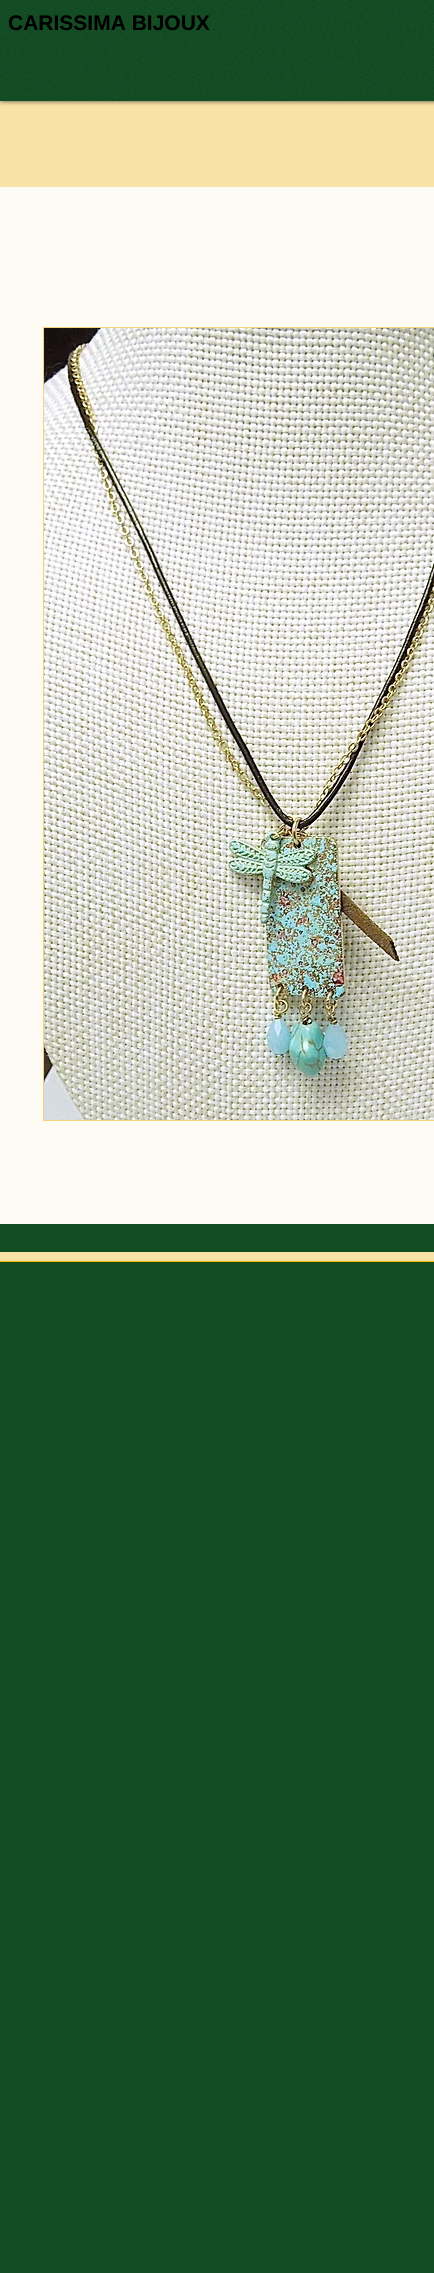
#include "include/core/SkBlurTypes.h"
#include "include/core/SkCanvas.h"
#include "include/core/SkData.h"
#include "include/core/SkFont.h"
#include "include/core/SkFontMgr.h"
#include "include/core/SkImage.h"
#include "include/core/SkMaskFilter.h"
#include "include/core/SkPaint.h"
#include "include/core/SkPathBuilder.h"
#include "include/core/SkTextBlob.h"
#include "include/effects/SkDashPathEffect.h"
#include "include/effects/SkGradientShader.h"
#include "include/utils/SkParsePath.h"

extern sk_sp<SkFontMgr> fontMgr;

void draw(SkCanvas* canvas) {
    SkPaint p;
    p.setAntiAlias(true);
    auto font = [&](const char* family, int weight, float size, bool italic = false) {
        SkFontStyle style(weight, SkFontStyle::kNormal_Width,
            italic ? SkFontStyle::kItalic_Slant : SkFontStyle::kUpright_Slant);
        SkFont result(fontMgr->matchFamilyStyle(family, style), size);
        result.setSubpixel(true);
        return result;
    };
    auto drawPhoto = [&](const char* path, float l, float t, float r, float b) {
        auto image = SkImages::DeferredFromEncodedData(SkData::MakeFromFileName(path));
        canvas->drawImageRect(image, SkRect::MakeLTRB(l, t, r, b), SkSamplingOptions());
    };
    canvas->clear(0xFF114C22);
    p.setColor(0xFFF9E2A6);
    canvas->drawRect(SkRect::MakeLTRB(0, 101, 434, 187), p);
    canvas->save();
    canvas->clipRect(SkRect::MakeLTRB(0, 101, 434, 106));
    p.setColor(0xB3000000);
    p.setMaskFilter(SkMaskFilter::MakeBlur(kNormal_SkBlurStyle, 2.5f));
    canvas->drawRect(SkRect::MakeLTRB(0, 0, 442, 101), p);
    p.setMaskFilter(nullptr);
    canvas->restore();
    drawPhoto("media/1.png", 0, 0, 434, 101);
    auto font1 = font("Liberation Sans", 700, 21);
    p.setColor(0xFF000000);
    canvas->drawString("CARISSIMA BIJOUX", 8, 30, font1, p);
    p.setColor(0xFFFEFBF4);
    canvas->drawRect(SkRect::MakeLTRB(0, 187, 434, 1224), p);
    p.setStyle(SkPaint::kStroke_Style);
    p.setStrokeWidth(1);
    p.setColor(0xFFF4D27A);
    canvas->drawRect(SkRect::MakeLTRB(43.5f, 327.5f, 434.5f, 1120.5f), p);
    drawPhoto("media/2.png", 44, 328, 434, 1120);
    p.setStyle(SkPaint::kFill_Style);
    p.setColor(0xFFF9E2A6);
    canvas->drawRect(SkRect::MakeLTRB(0, 1252, 434, 1261), p);
    p.setColor(0xFFF7B800);
    canvas->drawRect(SkRect::MakeLTRB(0, 1261, 434, 1262), p);
}
